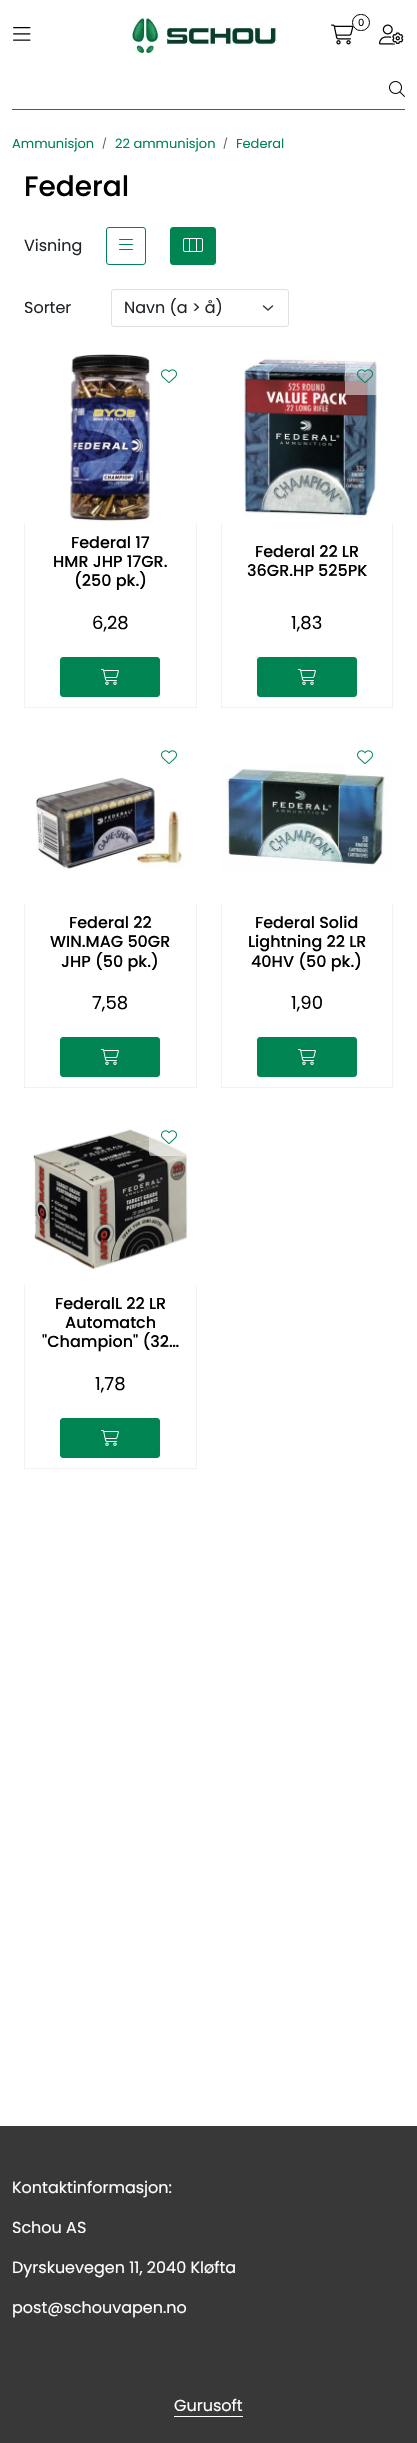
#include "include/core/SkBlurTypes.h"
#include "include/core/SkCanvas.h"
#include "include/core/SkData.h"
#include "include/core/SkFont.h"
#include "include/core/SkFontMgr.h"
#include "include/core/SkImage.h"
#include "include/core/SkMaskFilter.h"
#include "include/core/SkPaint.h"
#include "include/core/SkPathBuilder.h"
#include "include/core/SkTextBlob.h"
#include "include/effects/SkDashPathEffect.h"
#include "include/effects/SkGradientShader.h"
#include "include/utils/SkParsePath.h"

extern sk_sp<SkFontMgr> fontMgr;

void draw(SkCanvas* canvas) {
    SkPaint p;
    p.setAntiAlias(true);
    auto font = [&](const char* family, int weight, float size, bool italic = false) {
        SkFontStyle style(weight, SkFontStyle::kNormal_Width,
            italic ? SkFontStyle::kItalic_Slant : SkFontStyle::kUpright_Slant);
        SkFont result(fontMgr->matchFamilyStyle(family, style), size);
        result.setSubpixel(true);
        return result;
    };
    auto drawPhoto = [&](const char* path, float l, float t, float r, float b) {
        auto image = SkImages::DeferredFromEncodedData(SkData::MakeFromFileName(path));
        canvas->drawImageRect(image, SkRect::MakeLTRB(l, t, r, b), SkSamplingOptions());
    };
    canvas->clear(0xFFFFFFFF);
    drawPhoto("media/1.png", 131, 17, 277, 53);
    drawPhoto("media/2.png", 331, 24, 354, 45);
    p.setColor(0xFFFFFFFF);
    canvas->drawRoundRect(SkRect::MakeLTRB(352.5f, 14.5f, 369.5f, 30.5f), 8, 8, p);
    p.setStyle(SkPaint::kStroke_Style);
    p.setStrokeWidth(1);
    p.setColor(0xFF000000);
    canvas->drawRoundRect(SkRect::MakeLTRB(352.5f, 14.5f, 369.5f, 30.5f), 8, 8, p);
    auto font1 = font("Poppins", 400, 10);
    p.setStyle(SkPaint::kFill_Style);
    canvas->drawString("0", 358, 26, font1, p);
    drawPhoto("media/3.png", 379, 24, 404, 45);
    drawPhoto("media/4.png", 13, 27, 31, 41);
    drawPhoto("media/5.png", 389, 81, 405, 97);
    p.setColor(0xFF008452);
    canvas->drawRect(SkRect::MakeLTRB(12, 109, 405, 110), p);
    auto font2 = font("Poppins", 400, 13);
    canvas->drawString("Ammunisjon", 12, 148, font2, p);
    p.setColor(0xFF595C5F);
    canvas->drawString("/", 102, 147, font1, p);
    p.setColor(0xFF008452);
    canvas->drawString("22 ammunisjon", 115, 148, font2, p);
    p.setColor(0xFF595C5F);
    canvas->drawString("/", 223, 147, font1, p);
    p.setColor(0xFF008452);
    canvas->drawString("Federal", 236, 148, font2, p);
    auto font3 = font("Poppins", 500, 28);
    p.setColor(0xFF000000);
    canvas->drawString("Federal", 24, 196, font3, p);
    auto font4 = font("Poppins", 400, 16);
    p.setColor(0xFF212529);
    canvas->drawString("Visning", 24, 251, font4, p);
    p.setStyle(SkPaint::kStroke_Style);
    p.setColor(0xFF008452);
    canvas->drawRoundRect(SkRect::MakeLTRB(106.5f, 227.5f, 145.5f, 264.5f), 2.5f, 2.5f, p);
    drawPhoto("media/6.png", 119, 239, 133, 250);
    p.setStyle(SkPaint::kFill_Style);
    canvas->drawRoundRect(SkRect::MakeLTRB(170.5f, 227.5f, 215.5f, 264.5f), 2.5f, 2.5f, p);
    p.setStyle(SkPaint::kStroke_Style);
    canvas->drawRoundRect(SkRect::MakeLTRB(170.5f, 227.5f, 215.5f, 264.5f), 2.5f, 2.5f, p);
    drawPhoto("media/7.png", 183, 238, 203, 252);
    p.setStyle(SkPaint::kFill_Style);
    p.setColor(0xFF212529);
    canvas->drawString("Sorter", 24, 313, font4, p);
    p.setStyle(SkPaint::kStroke_Style);
    p.setStrokeWidth(1.5f);
    p.setStrokeCap(SkPaint::kRound_Cap);
    p.setStrokeJoin(SkPaint::kRound_Join);
    p.setColor(0xFF343A40);
    canvas->drawPath(SkPathBuilder().moveTo(263.5f, 306).lineTo(268, 310).lineTo(272.5f, 306).detach(), p);
    p.setStrokeWidth(1);
    p.setStrokeCap(SkPaint::kButt_Cap);
    p.setStrokeJoin(SkPaint::kMiter_Join);
    p.setColor(0xFFDEE2E6);
    canvas->drawRoundRect(SkRect::MakeLTRB(111.5f, 289.5f, 288.5f, 326.5f), 2.5f, 2.5f, p);
    p.setStyle(SkPaint::kFill_Style);
    p.setColor(0xFF212529);
    canvas->drawString("Navn (a > å)", 124, 313, font4, p);
    drawPhoto("media/8.png", 24, 351, 197, 524);
    p.setColor(0xFFF2F2F2);
    canvas->drawPath(SkPathBuilder().moveTo(197, 524).lineTo(197, 708).lineTo(196, 707).lineTo(196, 524).close().detach(), p);
    p.setColor(0x0D000000);
    canvas->drawPath(SkPathBuilder().moveTo(197, 708).lineTo(24, 708).lineTo(25, 707).lineTo(196, 707).close().detach(), p);
    canvas->drawPath(SkPathBuilder().moveTo(24, 708).lineTo(24, 524).lineTo(25, 524).lineTo(25, 707).close().detach(), p);
    p.setColor(0x80FFFFFF);
    canvas->drawRoundRect(SkRect::MakeLTRB(149, 359, 189, 395), 3, 3, p);
    drawPhoto("media/9.png", 161, 369, 177, 383);
    auto font5 = font("Poppins", 500, 16);
    p.setColor(0xFF000000);
    canvas->drawString("Federal 17", 71, 548, font5, p);
    canvas->drawString("HMR JHP 17GR.", 53, 567, font5, p);
    canvas->save();
    canvas->clipRect(SkRect::MakeLTRB(35, 533, 186, 590));
    canvas->drawString("(250 pk.)", 74, 586, font5, p);
    canvas->restore();
    auto font6 = font("Poppins", 400, 18);
    canvas->drawString("6,28", 92, 629, font6, p);
    p.setColor(0xFF008452);
    canvas->drawRoundRect(SkRect::MakeLTRB(60.5f, 657.5f, 159.5f, 696.5f), 2.5f, 2.5f, p);
    p.setStyle(SkPaint::kStroke_Style);
    canvas->drawRoundRect(SkRect::MakeLTRB(60.5f, 657.5f, 159.5f, 696.5f), 2.5f, 2.5f, p);
    drawPhoto("media/10.png", 101, 669, 119, 685);
    drawPhoto("media/11.png", 221, 351, 393, 524);
    p.setStyle(SkPaint::kFill_Style);
    p.setColor(0xFFF2F2F2);
    canvas->drawPath(SkPathBuilder().moveTo(393, 524).lineTo(393, 708).lineTo(392, 707).lineTo(392, 524).close().detach(), p);
    p.setColor(0x0D000000);
    canvas->drawPath(SkPathBuilder().moveTo(393, 708).lineTo(221, 708).lineTo(222, 707).lineTo(392, 707).close().detach(), p);
    canvas->drawPath(SkPathBuilder().moveTo(221, 708).lineTo(221, 524).lineTo(222, 524).lineTo(222, 707).close().detach(), p);
    p.setColor(0x80FFFFFF);
    canvas->drawRoundRect(SkRect::MakeLTRB(345, 359, 385, 395), 3, 3, p);
    drawPhoto("media/12.png", 357, 369, 373, 383);
    p.setColor(0xFF000000);
    canvas->drawString("Federal 22 LR", 255, 557, font5, p);
    canvas->drawString("36GR.HP 525PK", 247, 576, font5, p);
    canvas->drawString("1,83", 291, 629, font6, p);
    p.setColor(0xFF008452);
    canvas->drawRoundRect(SkRect::MakeLTRB(257.5f, 657.5f, 356.5f, 696.5f), 2.5f, 2.5f, p);
    p.setStyle(SkPaint::kStroke_Style);
    canvas->drawRoundRect(SkRect::MakeLTRB(257.5f, 657.5f, 356.5f, 696.5f), 2.5f, 2.5f, p);
    drawPhoto("media/10.png", 298, 669, 316, 685);
    drawPhoto("media/13.png", 24, 732, 197, 904);
    p.setStyle(SkPaint::kFill_Style);
    p.setColor(0xFFF2F2F2);
    canvas->drawPath(SkPathBuilder().moveTo(197, 904).lineTo(197, 1088).lineTo(196, 1087).lineTo(196, 904).close().detach(), p);
    p.setColor(0x0D000000);
    canvas->drawPath(SkPathBuilder().moveTo(197, 1088).lineTo(24, 1088).lineTo(25, 1087).lineTo(196, 1087).close().detach(), p);
    canvas->drawPath(SkPathBuilder().moveTo(24, 1088).lineTo(24, 904).lineTo(25, 904).lineTo(25, 1087).close().detach(), p);
    drawPhoto("media/9.png", 161, 750, 177, 764);
    p.setColor(0xFF000000);
    {
        const struct { const char* s; float x, y; } items[] = {
            {"Federal 22", 69, 928},
            {"WIN.MAG 50GR", 50, 947},
            {"JHP (50 pk.)", 61, 967},
        };
        for (auto [s, x, y] : items) {
            canvas->drawString(s, x, y, font5, p);
        }
    }
    canvas->drawString("7,58", 92, 1009, font6, p);
    p.setColor(0xFF008452);
    canvas->drawRoundRect(SkRect::MakeLTRB(60.5f, 1037.5f, 159.5f, 1076.5f), 2.5f, 2.5f, p);
    p.setStyle(SkPaint::kStroke_Style);
    canvas->drawRoundRect(SkRect::MakeLTRB(60.5f, 1037.5f, 159.5f, 1076.5f), 2.5f, 2.5f, p);
    drawPhoto("media/10.png", 101, 1049, 119, 1065);
    drawPhoto("media/14.png", 221, 732, 393, 904);
    p.setStyle(SkPaint::kFill_Style);
    p.setColor(0xFFF2F2F2);
    canvas->drawPath(SkPathBuilder().moveTo(393, 904).lineTo(393, 1088).lineTo(392, 1087).lineTo(392, 904).close().detach(), p);
    p.setColor(0x0D000000);
    canvas->drawPath(SkPathBuilder().moveTo(393, 1088).lineTo(221, 1088).lineTo(222, 1087).lineTo(392, 1087).close().detach(), p);
    canvas->drawPath(SkPathBuilder().moveTo(221, 1088).lineTo(221, 904).lineTo(222, 904).lineTo(222, 1087).close().detach(), p);
    p.setColor(0x80FFFFFF);
    canvas->drawRoundRect(SkRect::MakeLTRB(345, 740, 385, 776), 3, 3, p);
    drawPhoto("media/15.png", 357, 750, 373, 764);
    p.setColor(0xFF000000);
    {
        const struct { const char* s; float x, y; } items[] = {
            {"Federal Solid", 255, 928},
            {"Lightning 22 LR", 248, 947},
            {"40HV (50 pk.)", 251, 967},
        };
        for (auto [s, x, y] : items) {
            canvas->drawString(s, x, y, font5, p);
        }
    }
    canvas->drawString("1,90", 291, 1009, font6, p);
    p.setColor(0xFF008452);
    canvas->drawRoundRect(SkRect::MakeLTRB(257.5f, 1037.5f, 356.5f, 1076.5f), 2.5f, 2.5f, p);
    p.setStyle(SkPaint::kStroke_Style);
    canvas->drawRoundRect(SkRect::MakeLTRB(257.5f, 1037.5f, 356.5f, 1076.5f), 2.5f, 2.5f, p);
    drawPhoto("media/10.png", 298, 1049, 316, 1065);
    drawPhoto("media/16.png", 24, 1112, 197, 1285);
    p.setStyle(SkPaint::kFill_Style);
    p.setColor(0xFFF2F2F2);
    canvas->drawPath(SkPathBuilder().moveTo(197, 1285).lineTo(197, 1469).lineTo(196, 1468).lineTo(196, 1285).close().detach(), p);
    p.setColor(0x0D000000);
    canvas->drawPath(SkPathBuilder().moveTo(197, 1469).lineTo(24, 1469).lineTo(25, 1468).lineTo(196, 1468).close().detach(), p);
    canvas->drawPath(SkPathBuilder().moveTo(24, 1469).lineTo(24, 1285).lineTo(25, 1285).lineTo(25, 1468).close().detach(), p);
    p.setColor(0x80FFFFFF);
    canvas->drawRoundRect(SkRect::MakeLTRB(149, 1120, 189, 1156), 3, 3, p);
    drawPhoto("media/17.png", 161, 1130, 177, 1144);
    p.setColor(0xFF000000);
    {
        const struct { const char* s; float x, y; } items[] = {
            {"FederalL 22 LR", 55, 1309},
            {"Automatch", 65, 1328},
            {"\"Champion\" (32…", 42, 1347},
        };
        for (auto [s, x, y] : items) {
            canvas->drawString(s, x, y, font5, p);
        }
    }
    canvas->drawString("1,78", 95, 1390, font6, p);
    p.setColor(0xFF008452);
    canvas->drawRoundRect(SkRect::MakeLTRB(60.5f, 1418.5f, 159.5f, 1457.5f), 2.5f, 2.5f, p);
    p.setStyle(SkPaint::kStroke_Style);
    canvas->drawRoundRect(SkRect::MakeLTRB(60.5f, 1418.5f, 159.5f, 1457.5f), 2.5f, 2.5f, p);
    drawPhoto("media/10.png", 101, 1430, 119, 1446);
    p.setStyle(SkPaint::kFill_Style);
    p.setColor(0xFF383838);
    canvas->drawRect(SkRect::MakeLTRB(0, 2126, 417, 2443), p);
    p.setColor(0xFFFFFFFF);
    {
        const struct { const char* s; float x, y; } items[] = {
            {"Kontaktinformasjon:", 12, 2193},
            {"Schou AS", 12, 2233},
            {"Dyrskuevegen 11, 2040 Kløfta", 12, 2273},
            {"post@schouvapen.no", 12, 2313},
            {"Gurusoft", 174, 2411},
        };
        for (auto [s, x, y] : items) {
            canvas->drawString(s, x, y, font4, p);
        }
    }
    canvas->drawRect(SkRect::MakeLTRB(174, 2416, 243, 2417), p);
}
